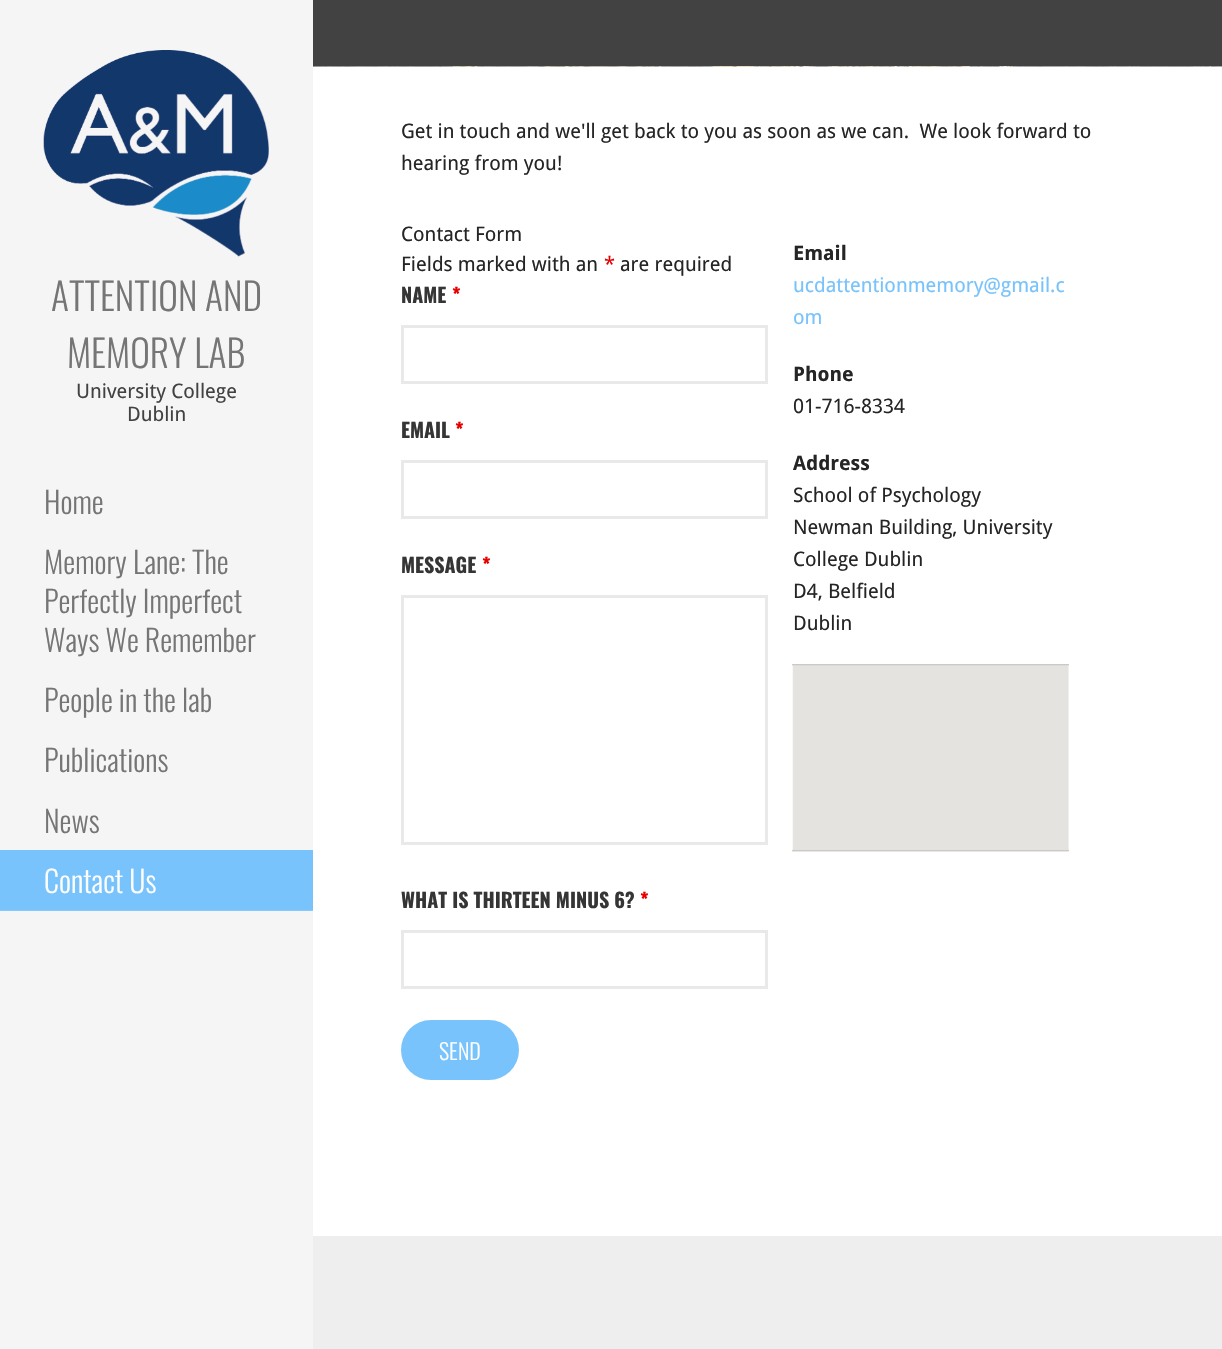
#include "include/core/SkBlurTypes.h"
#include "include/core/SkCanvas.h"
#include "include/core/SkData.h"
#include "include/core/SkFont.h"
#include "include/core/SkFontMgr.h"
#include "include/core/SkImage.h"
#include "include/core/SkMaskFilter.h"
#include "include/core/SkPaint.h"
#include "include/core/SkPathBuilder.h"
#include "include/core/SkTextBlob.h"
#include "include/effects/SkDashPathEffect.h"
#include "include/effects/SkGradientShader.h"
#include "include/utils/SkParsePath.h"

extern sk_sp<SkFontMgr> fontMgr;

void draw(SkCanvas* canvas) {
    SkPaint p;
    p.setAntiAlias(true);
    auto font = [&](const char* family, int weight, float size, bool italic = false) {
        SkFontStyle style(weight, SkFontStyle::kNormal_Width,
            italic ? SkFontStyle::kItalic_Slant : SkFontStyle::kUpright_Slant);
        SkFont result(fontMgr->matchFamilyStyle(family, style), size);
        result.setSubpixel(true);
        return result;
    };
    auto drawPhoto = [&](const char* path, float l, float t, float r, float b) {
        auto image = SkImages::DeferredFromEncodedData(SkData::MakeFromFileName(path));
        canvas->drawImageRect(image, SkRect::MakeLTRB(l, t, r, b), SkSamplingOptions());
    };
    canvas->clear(0xFFFFFFFF);
    drawPhoto("media/1.png", 313, 66, 1222, 67);
    p.setColor(0xFF424242);
    canvas->drawRect(SkRect::MakeLTRB(313, 0, 1222, 66), p);
    p.setColor(0xFFF5F5F5);
    canvas->drawRect(SkRect::MakeLTRB(0, 0, 313, 1349), p);
    drawPhoto("media/2.png", 43, 50, 269, 257);
    auto font1 = font("Oswald", 300, 37.5f);
    p.setColor(0xFF757575);
    canvas->drawString("ATTENTION AND", 51, 311, font1, p);
    canvas->drawString("MEMORY LAB", 67, 368, font1, p);
    auto font2 = font("Droid Sans", 400, 20);
    p.setColor(0xFF424242);
    canvas->drawString("University College", 76, 398, font2, p);
    canvas->drawString("Dublin", 127, 421, font2, p);
    auto font3 = font("Oswald", 300, 30);
    p.setColor(0xFF757575);
    {
        const struct { const char* s; float x, y; } items[] = {
            {"Home", 44, 514},
            {"Memory Lane: The", 44, 574},
            {"Perfectly Imperfect", 44, 613},
            {"Ways We Remember", 44, 652},
            {"People in the lab", 44, 712},
            {"Publications", 44, 772},
            {"News", 44, 833},
        };
        for (auto [s, x, y] : items) {
            canvas->drawString(s, x, y, font3, p);
        }
    }
    p.setColor(0xFF78C3FB);
    canvas->drawRect(SkRect::MakeLTRB(0, 850, 313, 910), p);
    p.setColor(0xFF86C9FB);
    canvas->drawRect(SkRect::MakeLTRB(0, 910, 313, 911), p);
    p.setColor(0xFFFFFFFF);
    canvas->drawString("Contact Us", 44, 893, font3, p);
    p.setColor(0xFF252525);
    {
        const struct { const char* s; float x, y; } items[] = {
            {"Get in touch and we'll get back to you as soon as we can.  We look forward to", 401, 138},
            {"hearing from you!", 401, 170},
            {"Contact Form", 401, 241},
            {"Fields marked with an", 401, 271},
        };
        for (auto [s, x, y] : items) {
            canvas->drawString(s, x, y, font2, p);
        }
    }
    p.setColor(0xFFE80000);
    canvas->drawString("*", 604, 271, font2, p);
    p.setColor(0xFF252525);
    canvas->drawString("are required", 620, 271, font2, p);
    auto font4 = font("Oswald", 700, 20);
    p.setColor(0xFF353535);
    canvas->drawString("NAME", 401, 303, font4, p);
    p.setColor(0xFFE80000);
    canvas->drawString("*", 452, 303, font4, p);
    p.setStyle(SkPaint::kStroke_Style);
    p.setStrokeWidth(3);
    p.setColor(0xFFE9E9E9);
    canvas->drawRect(SkRect::MakeLTRB(402.5f, 326.5f, 766.5f, 382.5f), p);
    p.setStyle(SkPaint::kFill_Style);
    p.setColor(0xFF353535);
    canvas->drawString("EMAIL", 401, 438, font4, p);
    p.setColor(0xFFE80000);
    canvas->drawString("*", 455, 438, font4, p);
    p.setStyle(SkPaint::kStroke_Style);
    p.setColor(0xFFE9E9E9);
    canvas->drawRect(SkRect::MakeLTRB(402.5f, 461.5f, 766.5f, 517.5f), p);
    p.setStyle(SkPaint::kFill_Style);
    p.setColor(0xFF353535);
    canvas->drawString("MESSAGE", 401, 573, font4, p);
    p.setColor(0xFFE80000);
    canvas->drawString("*", 482, 573, font4, p);
    p.setStyle(SkPaint::kStroke_Style);
    p.setColor(0xFFE9E9E9);
    canvas->drawRect(SkRect::MakeLTRB(402.5f, 596.5f, 766.5f, 843.5f), p);
    p.setStyle(SkPaint::kFill_Style);
    p.setColor(0xFF353535);
    canvas->drawString("WHAT IS THIRTEEN MINUS 6?", 401, 908, font4, p);
    p.setColor(0xFFE80000);
    canvas->drawString("*", 640, 908, font4, p);
    p.setStyle(SkPaint::kStroke_Style);
    p.setColor(0xFFE9E9E9);
    canvas->drawRect(SkRect::MakeLTRB(402.5f, 931.5f, 766.5f, 987.5f), p);
    p.setStyle(SkPaint::kFill_Style);
    p.setColor(0xFF78C3FB);
    canvas->drawRoundRect(SkRect::MakeLTRB(401, 1020, 519, 1080), 30, 30, p);
    auto font5 = font("Oswald", 300, 22);
    p.setColor(0xFFFFFFFF);
    canvas->drawString("SEND", 439, 1060, font5, p);
    auto font6 = font("Droid Sans", 700, 20);
    p.setColor(0xFF252525);
    canvas->drawString("Email", 793, 260, font6, p);
    p.setColor(0xFF78C3FB);
    canvas->drawString("ucdattentionmemory@gmail.c", 793, 292, font2, p);
    canvas->drawString("om", 793, 324, font2, p);
    p.setColor(0xFF252525);
    canvas->drawString("Phone", 793, 381, font6, p);
    canvas->drawString("01-716-8334", 793, 413, font2, p);
    canvas->drawString("Address", 793, 470, font6, p);
    {
        const struct { const char* s; float x, y; } items[] = {
            {"School of Psychology", 793, 502},
            {"Newman Building, University", 793, 534},
            {"College Dublin", 793, 566},
            {"D4, Belfield", 793, 598},
            {"Dublin", 793, 630},
        };
        for (auto [s, x, y] : items) {
            canvas->drawString(s, x, y, font2, p);
        }
    }
    drawPhoto("media/3.png", 792, 664, 1069, 852);
    p.setColor(0xFFEEEEEE);
    canvas->drawRect(SkRect::MakeLTRB(313, 1236, 1222, 1349), p);
}
